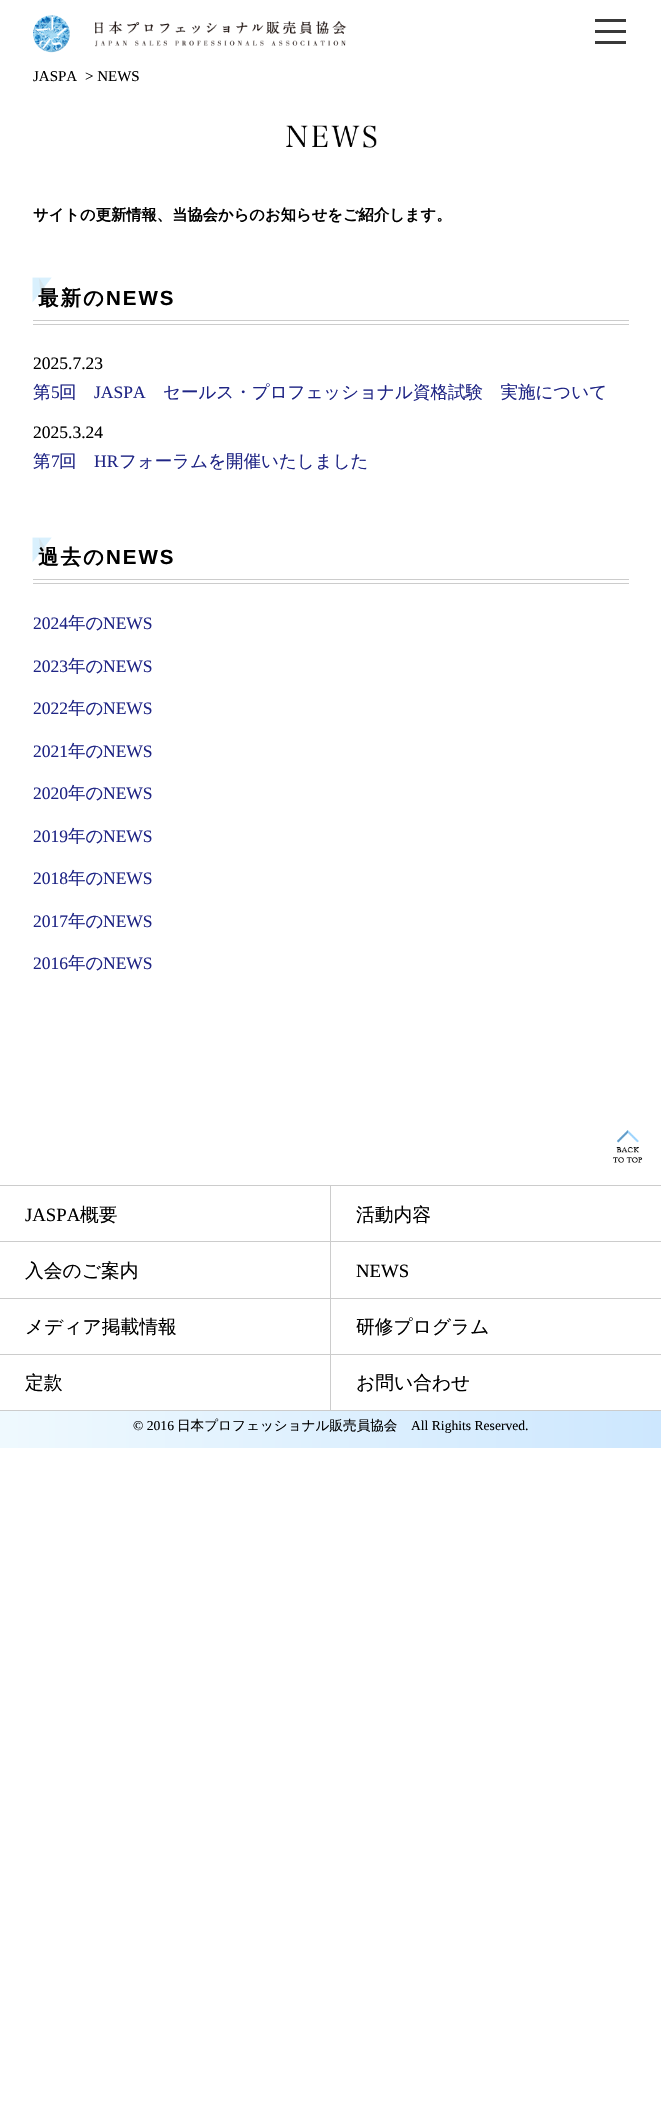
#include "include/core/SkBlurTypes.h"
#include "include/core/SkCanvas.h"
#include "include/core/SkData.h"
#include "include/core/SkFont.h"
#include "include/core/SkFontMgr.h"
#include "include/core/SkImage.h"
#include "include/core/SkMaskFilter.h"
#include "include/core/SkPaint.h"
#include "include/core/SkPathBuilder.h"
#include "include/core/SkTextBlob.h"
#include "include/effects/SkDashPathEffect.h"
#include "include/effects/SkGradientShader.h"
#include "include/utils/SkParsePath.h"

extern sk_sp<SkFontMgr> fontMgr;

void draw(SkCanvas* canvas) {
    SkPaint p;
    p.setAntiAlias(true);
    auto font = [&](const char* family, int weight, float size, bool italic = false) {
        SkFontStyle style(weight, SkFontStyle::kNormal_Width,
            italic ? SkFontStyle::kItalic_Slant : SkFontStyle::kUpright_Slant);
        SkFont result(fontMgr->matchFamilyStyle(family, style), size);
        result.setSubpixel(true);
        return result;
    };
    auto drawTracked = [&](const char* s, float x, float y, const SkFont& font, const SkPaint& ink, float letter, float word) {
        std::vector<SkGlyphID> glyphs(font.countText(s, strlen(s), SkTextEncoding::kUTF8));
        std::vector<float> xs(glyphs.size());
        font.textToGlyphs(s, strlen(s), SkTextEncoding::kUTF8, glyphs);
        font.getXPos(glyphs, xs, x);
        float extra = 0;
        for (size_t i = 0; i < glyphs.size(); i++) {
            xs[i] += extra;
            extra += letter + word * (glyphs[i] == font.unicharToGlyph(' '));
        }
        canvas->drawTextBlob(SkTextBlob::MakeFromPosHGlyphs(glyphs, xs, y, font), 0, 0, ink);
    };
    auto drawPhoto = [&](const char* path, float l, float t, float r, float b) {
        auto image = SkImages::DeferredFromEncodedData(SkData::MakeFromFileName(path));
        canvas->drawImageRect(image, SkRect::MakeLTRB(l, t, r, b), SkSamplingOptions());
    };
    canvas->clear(0xFFFFFFFF);
    drawPhoto("media/1.png", 33, 15, 70, 53);
    drawPhoto("media/2.png", 95, 21, 347, 47);
    {
        const struct { float l, t, r, b; SkColor color; } items[] = {
            {595, 30, 626, 33, 0xFF393939},
            {595, 19, 626, 22, 0xFF393939},
            {595, 41, 626, 44, 0xFF393939},
        };
        for (auto [l, t, r, b, color] : items) {
            p.setColor(color);
            canvas->drawRect(SkRect::MakeLTRB(l, t, r, b), p);
        }
    }
    auto font1 = font("Liberation Serif", 400, 15);
    p.setColor(0xFF000000);
    canvas->drawString("JASPA", 33, 81, font1, p);
    canvas->drawString("> NEWS", 85, 81, font1, p);
    drawPhoto("media/3.png", 286, 125, 377, 148);
    auto font2 = font("WenQuanYi Zen Hei", 700, 15.3f);
    canvas->drawString("サイトの更新情報、当協会からのお知らせをご紹介します。", 33, 220, font2, p);
    drawPhoto("media/4.png", 32, 277, 52, 306);
    p.setColor(0xFFCCCCCC);
    canvas->drawRect(SkRect::MakeLTRB(33, 324, 629, 325), p);
    auto font3 = font("WenQuanYi Zen Hei", 700, 20.5f);
    p.setColor(0xFF000000);
    drawTracked("最新の", 38, 305, font3, p, 2, 0);
    auto font4 = font("Liberation Sans", 700, 20.5f);
    drawTracked("NEWS", 106, 305, font4, p, 2, 0);
    p.setColor(0xFFCCCCCC);
    canvas->drawRect(SkRect::MakeLTRB(33, 320, 629, 321), p);
    auto font5 = font("Liberation Serif", 400, 17.5f);
    p.setColor(0xFF000000);
    canvas->drawString("2025.7.23", 33, 369, font5, p);
    auto font6 = font("WenQuanYi Zen Hei", 500, 17.5f);
    p.setColor(0xFF1F2585);
    canvas->drawString("第", 33, 398, font6, p);
    canvas->drawString("5", 51, 398, font5, p);
    canvas->drawString("回", 59, 398, font6, p);
    canvas->drawString("JASPA", 94, 398, font5, p);
    canvas->drawString("セールス・プロフェッショナル資格試験　実施について", 163, 398, font6, p);
    p.setColor(0xFF000000);
    canvas->drawString("2025.3.24", 33, 438, font5, p);
    p.setColor(0xFF1F2585);
    canvas->drawString("第", 33, 467, font6, p);
    canvas->drawString("7", 51, 467, font5, p);
    canvas->drawString("回", 59, 467, font6, p);
    canvas->drawString("HR", 94, 467, font5, p);
    canvas->drawString("フォーラムを開催いたしました", 119, 467, font6, p);
    drawPhoto("media/5.png", 32, 537, 52, 566);
    p.setColor(0xFFCCCCCC);
    canvas->drawRect(SkRect::MakeLTRB(33, 583, 629, 584), p);
    p.setColor(0xFF000000);
    drawTracked("過去の", 38, 564, font3, p, 2, 0);
    drawTracked("NEWS", 106, 564, font4, p, 2, 0);
    p.setColor(0xFFCCCCCC);
    canvas->drawRect(SkRect::MakeLTRB(33, 579, 629, 580), p);
    p.setColor(0xFF1F2585);
    canvas->drawString("2024", 33, 629, font5, p);
    canvas->drawString("年の", 68, 629, font6, p);
    canvas->drawString("NEWS", 103, 629, font5, p);
    canvas->drawString("2023", 33, 672, font5, p);
    canvas->drawString("年の", 68, 672, font6, p);
    canvas->drawString("NEWS", 103, 672, font5, p);
    canvas->drawString("2022", 33, 714, font5, p);
    canvas->drawString("年の", 68, 714, font6, p);
    canvas->drawString("NEWS", 103, 714, font5, p);
    canvas->drawString("2021", 33, 757, font5, p);
    canvas->drawString("年の", 68, 757, font6, p);
    canvas->drawString("NEWS", 103, 757, font5, p);
    canvas->drawString("2020", 33, 799, font5, p);
    canvas->drawString("年の", 68, 799, font6, p);
    canvas->drawString("NEWS", 103, 799, font5, p);
    canvas->drawString("2019", 33, 842, font5, p);
    canvas->drawString("年の", 68, 842, font6, p);
    canvas->drawString("NEWS", 103, 842, font5, p);
    canvas->drawString("2018", 33, 884, font5, p);
    canvas->drawString("年の", 68, 884, font6, p);
    canvas->drawString("NEWS", 103, 884, font5, p);
    canvas->drawString("2017", 33, 927, font5, p);
    canvas->drawString("年の", 68, 927, font6, p);
    canvas->drawString("NEWS", 103, 927, font5, p);
    canvas->drawString("2016", 33, 969, font5, p);
    canvas->drawString("年の", 68, 969, font6, p);
    canvas->drawString("NEWS", 103, 969, font5, p);
    drawPhoto("media/6.png", 612, 1130, 643, 1163);
    {
        const struct { float l, t, r, b; SkColor color; } items[] = {
            {0, 1185, 661, 1186, 0xFFCCCCCC},
            {330, 1186, 331, 1410, 0xFFCCCCCC},
            {0, 1241, 661, 1242, 0xFFCCCCCC},
        };
        for (auto [l, t, r, b, color] : items) {
            p.setColor(color);
            canvas->drawRect(SkRect::MakeLTRB(l, t, r, b), p);
        }
    }
    auto font7 = font("Liberation Serif", 400, 18.75f);
    p.setColor(0xFF000000);
    canvas->drawString("JASPA", 25, 1221, font7, p);
    auto font8 = font("WenQuanYi Zen Hei", 500, 18.75f);
    canvas->drawString("概要", 80, 1221, font8, p);
    canvas->drawString("活動内容", 356, 1221, font8, p);
    p.setColor(0xFFCCCCCC);
    canvas->drawRect(SkRect::MakeLTRB(0, 1298, 661, 1299), p);
    p.setColor(0xFF000000);
    canvas->drawString("入会のご案内", 25, 1277, font8, p);
    canvas->drawString("NEWS", 356, 1277, font7, p);
    p.setColor(0xFFCCCCCC);
    canvas->drawRect(SkRect::MakeLTRB(0, 1354, 661, 1355), p);
    p.setColor(0xFF000000);
    {
        const struct { const char* s; float x, y; } items[] = {
            {"メディア掲載情報", 25, 1333},
            {"研修プログラム", 356, 1333},
            {"定款", 25, 1389},
            {"お問い合わせ", 356, 1389},
        };
        for (auto [s, x, y] : items) {
            canvas->drawString(s, x, y, font8, p);
        }
    }
    {
        const SkColor colors[] = {0xFFEFF9FE, 0xFFCDE7FE};
        const float stops[] = {0, 1};
        const SkPoint ends[] = {{0, 1429}, {661, 1429}};
        p.setShader(SkGradientShader::MakeLinear(ends, colors, stops, 2, SkTileMode::kClamp));
        p.setAlpha(255);
    }
    canvas->drawRect(SkRect::MakeLTRB(0, 1411, 661, 1448), p);
    p.setShader(nullptr);
    p.setColor(0xFFCCCCCC);
    canvas->drawRect(SkRect::MakeLTRB(0, 1410, 661, 1411), p);
    auto font9 = font("Liberation Serif", 400, 13.6f);
    p.setColor(0xFF000000);
    canvas->drawString("© 2016", 133, 1430, font9, p);
    auto font10 = font("WenQuanYi Zen Hei", 500, 13.6f);
    canvas->drawString("日本プロフェッショナル販売員協会", 177, 1430, font10, p);
    canvas->drawString("All Righits Reserved.", 411, 1430, font9, p);
}
